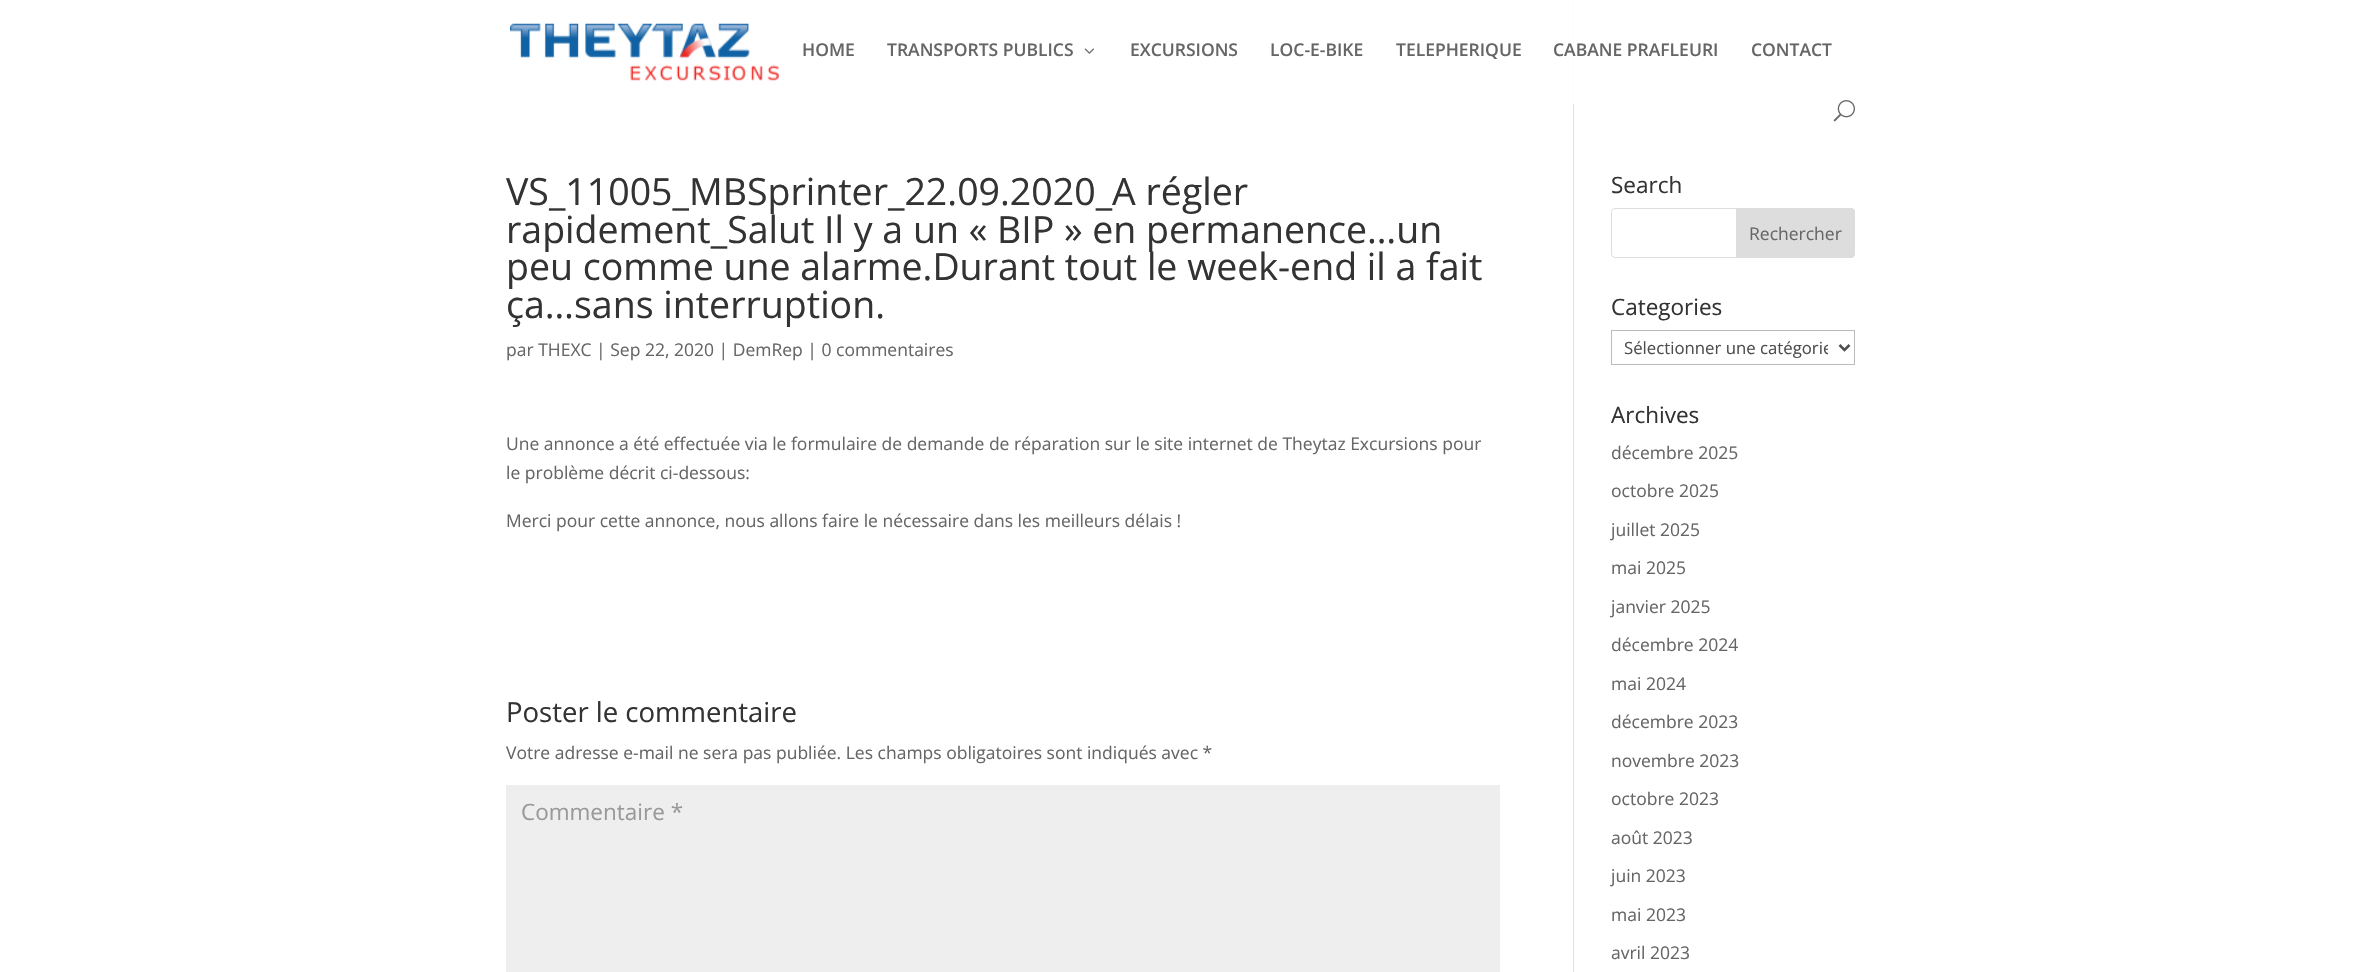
#include "include/core/SkBlurTypes.h"
#include "include/core/SkCanvas.h"
#include "include/core/SkData.h"
#include "include/core/SkFont.h"
#include "include/core/SkFontMgr.h"
#include "include/core/SkImage.h"
#include "include/core/SkMaskFilter.h"
#include "include/core/SkPaint.h"
#include "include/core/SkPathBuilder.h"
#include "include/core/SkTextBlob.h"
#include "include/effects/SkDashPathEffect.h"
#include "include/effects/SkGradientShader.h"
#include "include/utils/SkParsePath.h"

extern sk_sp<SkFontMgr> fontMgr;

void draw(SkCanvas* canvas) {
    SkPaint p;
    p.setAntiAlias(true);
    auto font = [&](const char* family, int weight, float size, bool italic = false) {
        SkFontStyle style(weight, SkFontStyle::kNormal_Width,
            italic ? SkFontStyle::kItalic_Slant : SkFontStyle::kUpright_Slant);
        SkFont result(fontMgr->matchFamilyStyle(family, style), size);
        result.setSubpixel(true);
        return result;
    };
    auto drawPhoto = [&](const char* path, float l, float t, float r, float b) {
        auto image = SkImages::DeferredFromEncodedData(SkData::MakeFromFileName(path));
        canvas->drawImageRect(image, SkRect::MakeLTRB(l, t, r, b), SkSamplingOptions());
    };
    canvas->clear(0xFFFFFFFF);
    drawPhoto("media/1.png", 510, 23, 779, 81);
    auto font1 = font("Open Sans", 600, 17.5f);
    p.setColor(0xFF666666);
    canvas->drawString("HOME", 802, 56, font1, p);
    canvas->drawString("TRANSPORTS PUBLICS", 887, 56, font1, p);
    drawPhoto("media/2.png", 1084, 48, 1094, 54);
    {
        const struct { const char* s; float x, y; } items[] = {
            {"EXCURSIONS", 1130, 56},
            {"LOC-E-BIKE", 1270, 56},
            {"TELEPHERIQUE", 1396, 56},
        };
        for (auto [s, x, y] : items) {
            canvas->drawString(s, x, y, font1, p);
        }
    }
    p.setColor(0xFFFCFCFC);
    canvas->drawRect(SkRect::MakeLTRB(1573, 0, 1574, 104), p);
    p.setColor(0xFF666666);
    canvas->drawString("CABANE PRAFLEURI", 1553, 56, font1, p);
    canvas->drawString("CONTACT", 1751, 56, font1, p);
    drawPhoto("media/3.png", 1833, 100, 1855, 122);
    p.setColor(0xFFE2E2E2);
    canvas->drawRect(SkRect::MakeLTRB(1573, 104, 1574, 972), p);
    auto font2 = font("Open Sans", 400, 37.5f);
    p.setColor(0xFF333333);
    {
        const struct { const char* s; float x, y; } items[] = {
            {"VS_11005_MBSprinter_22.09.2020_A régler", 506, 205},
            {"rapidement_Salut Il y a un « BIP » en permanence…un", 506, 243},
            {"peu comme une alarme.Durant tout le week-end il a fait", 506, 280},
            {"ça…sans interruption.", 506, 318},
        };
        for (auto [s, x, y] : items) {
            canvas->drawString(s, x, y, font2, p);
        }
    }
    auto font3 = font("Open Sans", 400, 17.5f);
    p.setColor(0xFF666666);
    {
        const struct { const char* s; float x, y; } items[] = {
            {"par THEXC | Sep 22, 2020 | DemRep | 0 commentaires", 506, 356},
            {"Une annonce a été effectuée via le formulaire de demande de réparation sur le site internet de Theytaz Excursions pour", 506, 450},
            {"le problème décrit ci-dessous:", 506, 479},
            {"Merci pour cette annonce, nous allons faire le nécessaire dans les meilleurs délais !", 506, 527},
        };
        for (auto [s, x, y] : items) {
            canvas->drawString(s, x, y, font3, p);
        }
    }
    auto font4 = font("Open Sans", 400, 27.5f);
    p.setColor(0xFF333333);
    canvas->drawString("Poster le commentaire", 506, 722, font4, p);
    p.setColor(0xFF666666);
    canvas->drawString("Votre adresse e-mail ne sera pas publiée. Les champs obligatoires sont indiqués avec *", 506, 759, font3, p);
    p.setColor(0xFFEEEEEE);
    canvas->drawRect(SkRect::MakeLTRB(506, 785, 1500, 972), p);
    auto font5 = font("Open Sans", 400, 22.5f);
    p.setColor(0xFF999999);
    canvas->drawString("Commentaire *", 521, 820, font5, p);
    p.setColor(0xFF333333);
    canvas->drawString("Search", 1611, 193, font5, p);
    p.setStyle(SkPaint::kStroke_Style);
    p.setStrokeWidth(1);
    p.setColor(0xFFDDDDDD);
    canvas->drawRoundRect(SkRect::MakeLTRB(1611.5f, 208.5f, 1854.5f, 257.5f), 3.5f, 3.5f, p);
    p.setStyle(SkPaint::kFill_Style);
    canvas->drawPath(SkPathBuilder().moveTo(1736.5f, 208.5f).lineTo(1851, 208.5f).cubicTo(1853, 208.5f, 1854.5f, 210, 1854.5f, 212).lineTo(1854.5f, 254).cubicTo(1854.5f, 256, 1853, 257.5f, 1851, 257.5f).lineTo(1736.5f, 257.5f).close().detach(), p);
    p.setStyle(SkPaint::kStroke_Style);
    canvas->drawPath(SkPathBuilder().moveTo(1736.5f, 208.5f).lineTo(1851, 208.5f).cubicTo(1853, 208.5f, 1854.5f, 210, 1854.5f, 212).lineTo(1854.5f, 254).cubicTo(1854.5f, 256, 1853, 257.5f, 1851, 257.5f).lineTo(1736.5f, 257.5f).close().detach(), p);
    p.setStyle(SkPaint::kFill_Style);
    p.setColor(0xFF666666);
    canvas->drawString("Rechercher", 1749, 240, font3, p);
    p.setColor(0xFF333333);
    canvas->drawString("Categories", 1611, 315, font5, p);
    p.setStyle(SkPaint::kStroke_Style);
    p.setColor(0xFFBBBBBB);
    canvas->drawRect(SkRect::MakeLTRB(1611.5f, 330.5f, 1854.5f, 364.5f), p);
    p.setStrokeWidth(2.5f);
    p.setColor(0xFF4E4E4E);
    canvas->drawPath(SkPathBuilder().moveTo(1839.5f, 345).lineTo(1844.5f, 350).lineTo(1849.5f, 345).detach(), p);
    canvas->save();
    canvas->clipRect(SkRect::MakeLTRB(1624, 335, 1828, 360));
    auto font6 = font("Open Sans", 400, 16.75f);
    p.setStyle(SkPaint::kFill_Style);
    canvas->drawString("Sélectionner une catégorie", 1624, 354, font6, p);
    canvas->restore();
    p.setColor(0xFF333333);
    canvas->drawString("Archives", 1611, 423, font5, p);
    p.setColor(0xFF666666);
    {
        const struct { const char* s; float x, y; } items[] = {
            {"décembre 2025", 1611, 459},
            {"octobre 2025", 1611, 497},
            {"juillet 2025", 1611, 536},
            {"mai 2025", 1611, 574},
            {"janvier 2025", 1611, 613},
            {"décembre 2024", 1611, 651},
            {"mai 2024", 1611, 690},
            {"décembre 2023", 1611, 728},
            {"novembre 2023", 1611, 767},
            {"octobre 2023", 1611, 805},
            {"août 2023", 1611, 844},
            {"juin 2023", 1611, 882},
            {"mai 2023", 1611, 921},
            {"avril 2023", 1611, 959},
        };
        for (auto [s, x, y] : items) {
            canvas->drawString(s, x, y, font3, p);
        }
    }
}
